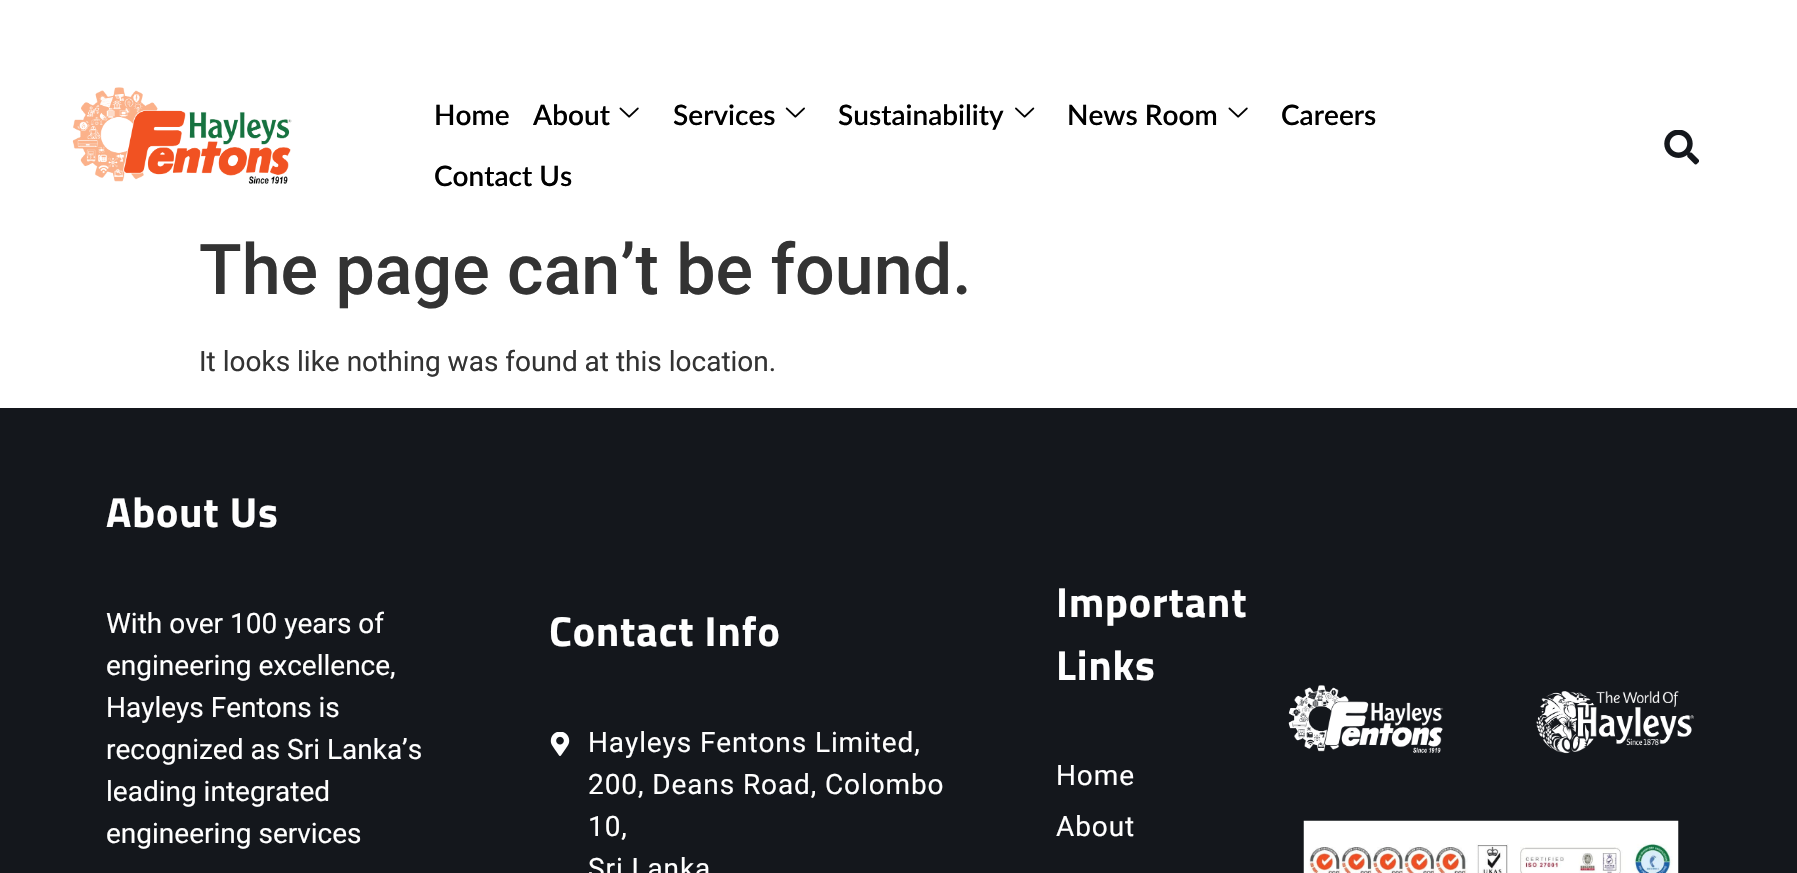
#include "include/core/SkBlurTypes.h"
#include "include/core/SkCanvas.h"
#include "include/core/SkData.h"
#include "include/core/SkFont.h"
#include "include/core/SkFontMgr.h"
#include "include/core/SkImage.h"
#include "include/core/SkMaskFilter.h"
#include "include/core/SkPaint.h"
#include "include/core/SkPathBuilder.h"
#include "include/core/SkTextBlob.h"
#include "include/effects/SkDashPathEffect.h"
#include "include/effects/SkGradientShader.h"
#include "include/utils/SkParsePath.h"

extern sk_sp<SkFontMgr> fontMgr;

void draw(SkCanvas* canvas) {
    SkPaint p;
    p.setAntiAlias(true);
    auto font = [&](const char* family, int weight, float size, bool italic = false) {
        SkFontStyle style(weight, SkFontStyle::kNormal_Width,
            italic ? SkFontStyle::kItalic_Slant : SkFontStyle::kUpright_Slant);
        SkFont result(fontMgr->matchFamilyStyle(family, style), size);
        result.setSubpixel(true);
        return result;
    };
    auto drawTracked = [&](const char* s, float x, float y, const SkFont& font, const SkPaint& ink, float letter, float word) {
        std::vector<SkGlyphID> glyphs(font.countText(s, strlen(s), SkTextEncoding::kUTF8));
        std::vector<float> xs(glyphs.size());
        font.textToGlyphs(s, strlen(s), SkTextEncoding::kUTF8, glyphs);
        font.getXPos(glyphs, xs, x);
        float extra = 0;
        for (size_t i = 0; i < glyphs.size(); i++) {
            xs[i] += extra;
            extra += letter + word * (glyphs[i] == font.unicharToGlyph(' '));
        }
        canvas->drawTextBlob(SkTextBlob::MakeFromPosHGlyphs(glyphs, xs, y, font), 0, 0, ink);
    };
    auto drawPhoto = [&](const char* path, float l, float t, float r, float b) {
        auto image = SkImages::DeferredFromEncodedData(SkData::MakeFromFileName(path));
        canvas->drawImageRect(image, SkRect::MakeLTRB(l, t, r, b), SkSamplingOptions());
    };
    canvas->clear(0xFFFFFFFF);
    drawPhoto("media/1.png", 72, 87, 292, 184);
    auto font1 = font("Lato", 600, 28);
    p.setColor(0xFF000000);
    canvas->drawString("Home", 434, 125, font1, p);
    canvas->drawString("About", 533, 125, font1, p);
    drawPhoto("media/2.png", 619, 107, 639, 118);
    canvas->drawString("Services", 673, 125, font1, p);
    drawPhoto("media/3.png", 785, 107, 805, 118);
    canvas->drawString("Sustainability", 838, 125, font1, p);
    drawPhoto("media/4.png", 1015, 107, 1035, 118);
    canvas->drawString("News Room", 1067, 125, font1, p);
    drawPhoto("media/2.png", 1228, 107, 1248, 118);
    canvas->drawString("Careers", 1281, 125, font1, p);
    canvas->drawString("Contact Us", 434, 186, font1, p);
    drawPhoto("media/5.png", 1664, 130, 1699, 165);
    auto font2 = font("Roboto", 500, 70);
    p.setColor(0xFF333333);
    canvas->drawString("The page can’t be found.", 199, 294, font2, p);
    auto font3 = font("Roboto", 400, 28);
    canvas->drawString("It looks like nothing was found at this location.", 199, 371, font3, p);
    p.setColor(0xFF14171C);
    canvas->drawRect(SkRect::MakeLTRB(0, 408, 1797, 873), p);
    auto font4 = font("Titillium Web", 700, 42);
    p.setColor(0xFFFFFFFF);
    drawTracked("About Us", 106, 527, font4, p, 0.9f, 0);
    {
        const struct { const char* s; float x, y; } items[] = {
            {"With over 100 years of", 106, 633},
            {"engineering excellence,", 106, 675},
            {"Hayleys Fentons is", 106, 717},
            {"recognized as Sri Lanka’s", 106, 759},
            {"leading integrated", 106, 801},
            {"engineering services", 106, 843},
        };
        for (auto [s, x, y] : items) {
            canvas->drawString(s, x, y, font3, p);
        }
    }
    drawTracked("Contact Info", 549, 646, font4, p, 0.9f, 0);
    drawPhoto("media/6.png", 550, 732, 570, 756);
    {
        const struct { const char* s; float x, y; } items[] = {
            {"Hayleys Fentons Limited,", 588, 752},
            {"200, Deans Road, Colombo", 588, 794},
            {"10,", 588, 836},
            {"Sri Lanka", 588, 878},
        };
        for (auto [s, x, y] : items) {
            drawTracked(s, x, y, font3, p, 0.9f, 0);
        }
    }
    drawTracked("Important", 1056, 617, font4, p, 0.9f, 0);
    drawTracked("Links", 1056, 680, font4, p, 0.9f, 0);
    drawTracked("Home", 1056, 785, font3, p, 0.9f, 0);
    drawTracked("About", 1056, 836, font3, p, 0.9f, 0);
    drawPhoto("media/7.png", 1288, 685, 1444, 753);
    drawPhoto("media/8.png", 1536, 691, 1694, 754);
    drawPhoto("media/9.png", 1303, 820, 1679, 873);
}
